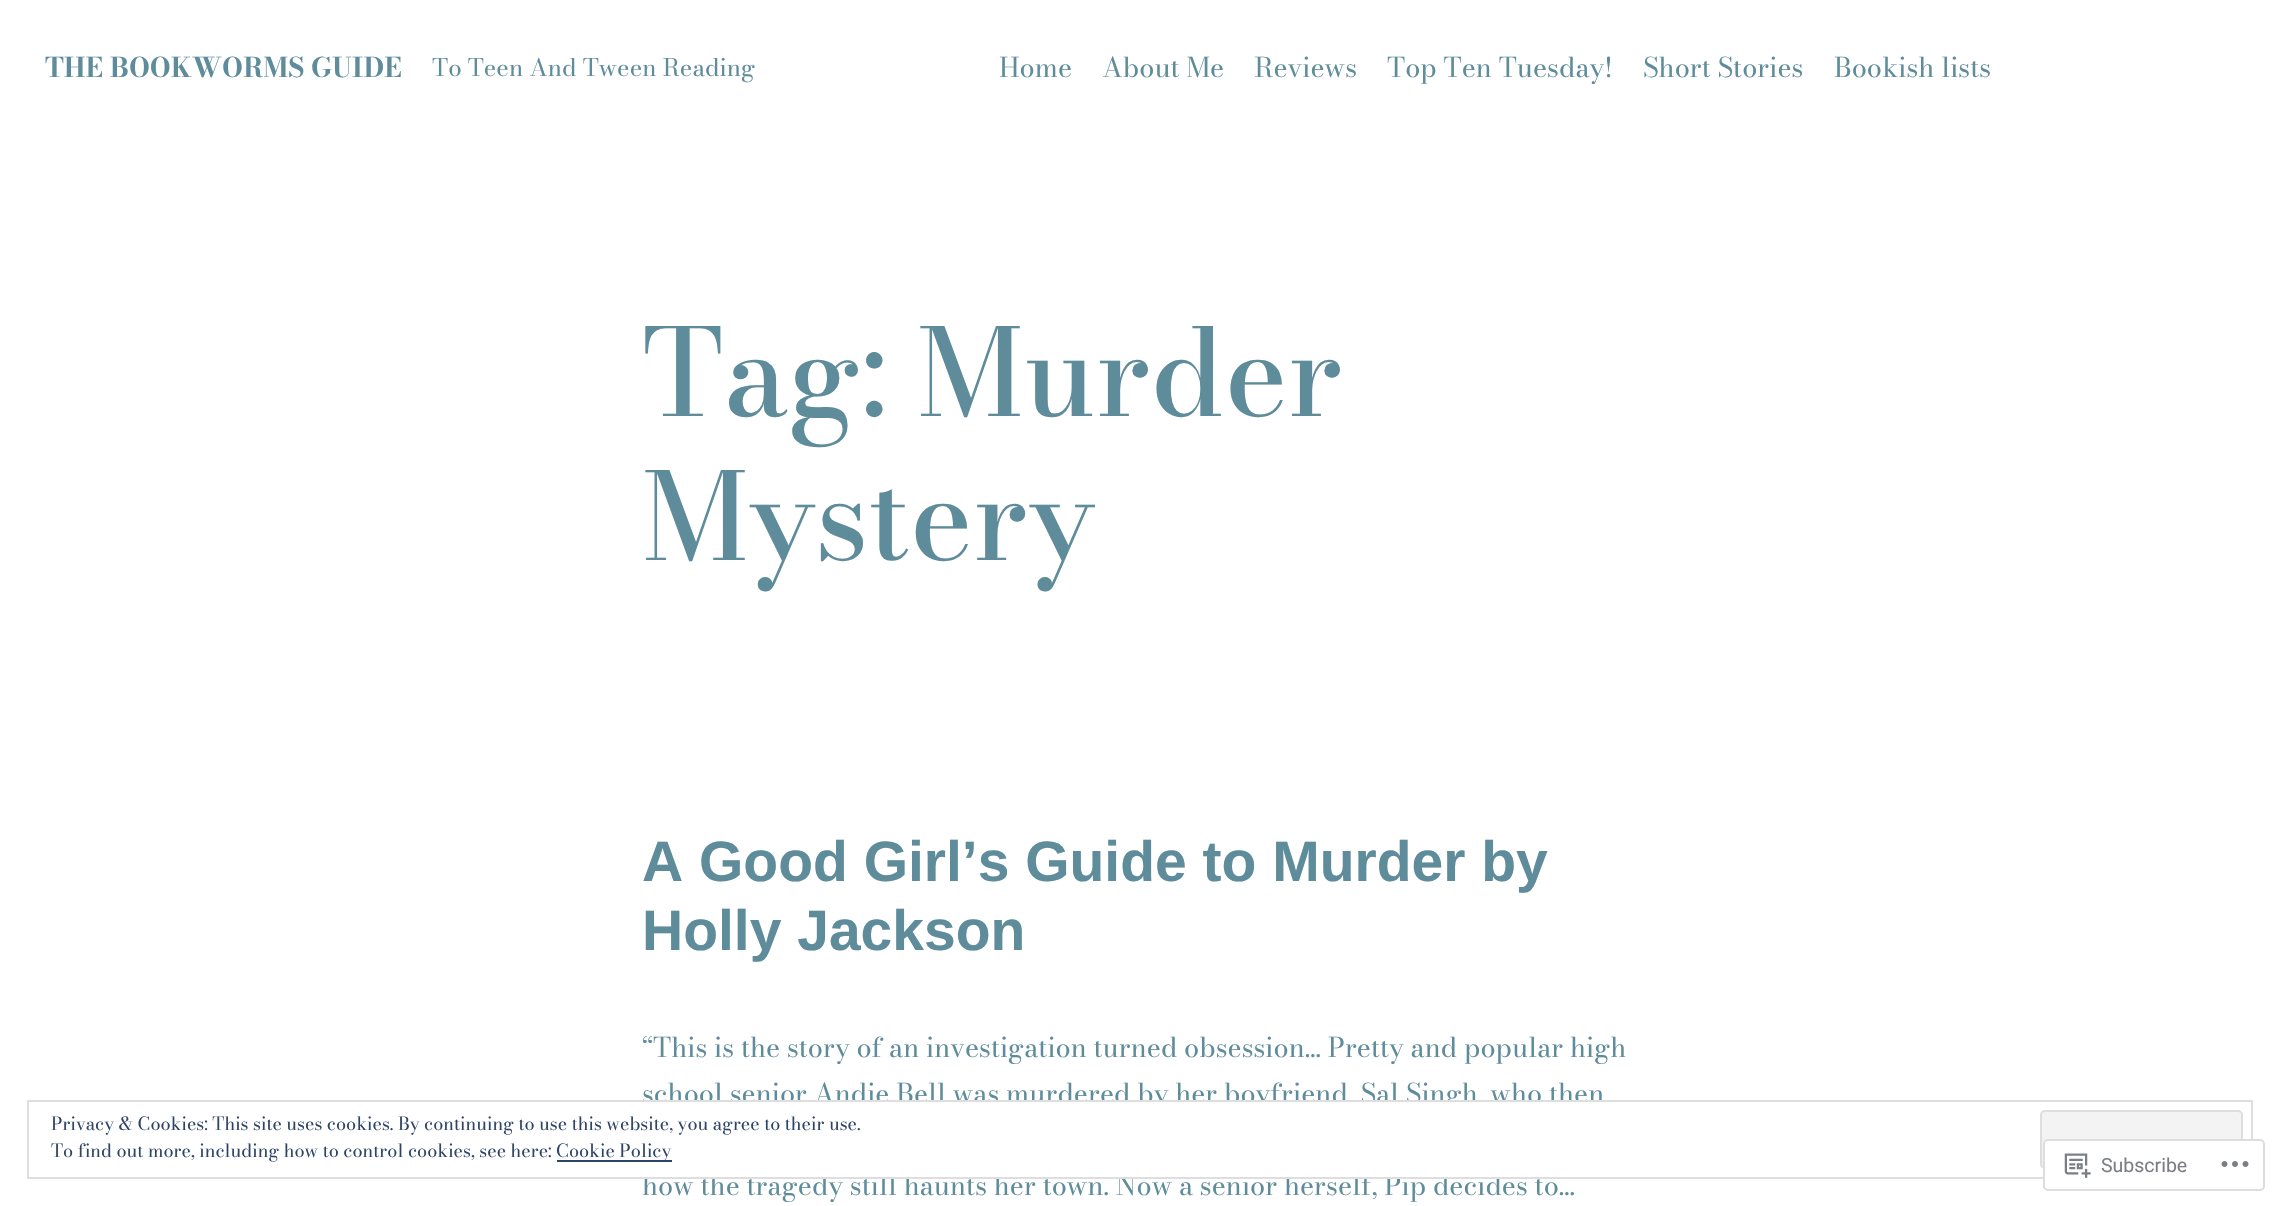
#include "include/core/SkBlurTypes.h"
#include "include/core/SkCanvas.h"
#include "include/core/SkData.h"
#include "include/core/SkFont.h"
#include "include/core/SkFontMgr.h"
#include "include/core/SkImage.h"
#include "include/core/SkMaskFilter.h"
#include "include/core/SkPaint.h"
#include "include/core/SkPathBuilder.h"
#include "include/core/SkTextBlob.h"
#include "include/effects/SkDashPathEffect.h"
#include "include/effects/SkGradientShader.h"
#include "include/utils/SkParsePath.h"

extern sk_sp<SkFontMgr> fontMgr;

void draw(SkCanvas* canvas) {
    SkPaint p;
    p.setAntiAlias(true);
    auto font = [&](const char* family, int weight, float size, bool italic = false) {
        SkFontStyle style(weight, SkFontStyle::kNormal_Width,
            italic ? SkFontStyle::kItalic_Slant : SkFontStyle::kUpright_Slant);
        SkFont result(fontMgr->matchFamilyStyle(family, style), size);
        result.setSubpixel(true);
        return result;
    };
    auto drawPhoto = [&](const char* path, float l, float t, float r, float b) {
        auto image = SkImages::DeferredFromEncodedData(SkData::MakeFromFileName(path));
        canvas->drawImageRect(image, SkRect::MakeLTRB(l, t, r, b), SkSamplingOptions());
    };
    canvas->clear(0xFFFFFFFF);
    auto font1 = font("Bodoni Moda", 700, 27);
    p.setColor(0xFF5E8C9B);
    canvas->drawString("THE BOOKWORMS GUIDE", 45, 77, font1, p);
    auto font2 = font("Bodoni Moda", 400, 24);
    canvas->drawString("To Teen And Tween Reading", 432, 76, font2, p);
    auto font3 = font("Bodoni Moda", 400, 27);
    {
        const struct { const char* s; float x, y; } items[] = {
            {"Home", 999, 77},
            {"About Me", 1102, 77},
            {"Reviews", 1254, 77},
            {"Top Ten Tuesday!", 1387, 77},
            {"Short Stories", 1643, 77},
            {"Bookish lists", 1834, 77},
        };
        for (auto [s, x, y] : items) {
            canvas->drawString(s, x, y, font3, p);
        }
    }
    auto font4 = font("Bodoni Moda", 500, 120);
    canvas->drawString("Tag: Murder", 642, 416, font4, p);
    canvas->drawString("Mystery", 642, 560, font4, p);
    auto font5 = font("Liberation Sans", 700, 57);
    canvas->drawString("A Good Girl’s Guide to Murder by", 642, 881, font5, p);
    canvas->drawString("Holly Jackson", 642, 950, font5, p);
    {
        const struct { const char* s; float x, y; } items[] = {
            {"“This is the story of an investigation turned obsession… Pretty and popular high", 642, 1057},
            {"school senior Andie Bell was murdered by her boyfriend, Sal Singh, who then", 642, 1103},
            {"how the tragedy still haunts her town. Now a senior herself, Pip decides to…", 642, 1195},
        };
        for (auto [s, x, y] : items) {
            canvas->drawString(s, x, y, font3, p);
        }
    }
    p.setColor(0xFFFFFFFF);
    canvas->drawRect(SkRect::MakeLTRB(643, 1102, 1604, 1177), p);
    p.setStyle(SkPaint::kStroke_Style);
    p.setStrokeWidth(2);
    p.setColor(0xFFDEDEDE);
    canvas->drawRect(SkRect::MakeLTRB(28, 1101, 2252, 1178), p);
    auto font6 = font("Bodoni Moda", 400, 18);
    p.setStyle(SkPaint::kFill_Style);
    p.setColor(0xFF2E4467);
    canvas->drawString("Privacy & Cookies: This site uses cookies. By continuing to use this website, you agree to their use.", 51, 1130, font6, p);
    p.setColor(0xFFF3F3F3);
    canvas->drawRoundRect(SkRect::MakeLTRB(2041, 1111, 2242, 1168), 4, 4, p);
    p.setStyle(SkPaint::kStroke_Style);
    p.setColor(0xFFDEDEDE);
    canvas->drawRoundRect(SkRect::MakeLTRB(2041, 1111, 2242, 1168), 4, 4, p);
    p.setStyle(SkPaint::kFill_Style);
    p.setColor(0xFF2E4467);
    canvas->drawString("To find out more, including how to control cookies, see here:", 51, 1157, font6, p);
    canvas->drawRect(SkRect::MakeLTRB(557, 1160, 672, 1162), p);
    canvas->drawString("Cookie Policy", 556, 1157, font6, p);
    p.setColor(0xFAFFFFFF);
    canvas->drawRoundRect(SkRect::MakeLTRB(2043, 1139, 2265, 1191), 5, 5, p);
    p.setStyle(SkPaint::kStroke_Style);
    p.setColor(0xFADCDCDE);
    canvas->drawRoundRect(SkRect::MakeLTRB(2044, 1140, 2264, 1190), 4, 4, p);
    drawPhoto("media/1.png", 2064, 1153, 2091, 1178);
    auto font7 = font("Roboto", 400, 19.5f);
    p.setStyle(SkPaint::kFill_Style);
    p.setColor(0xFF7B7F84);
    canvas->drawString("Subscribe", 2101, 1172, font7, p);
    drawPhoto("media/2.png", 2221, 1161, 2249, 1167);
}
